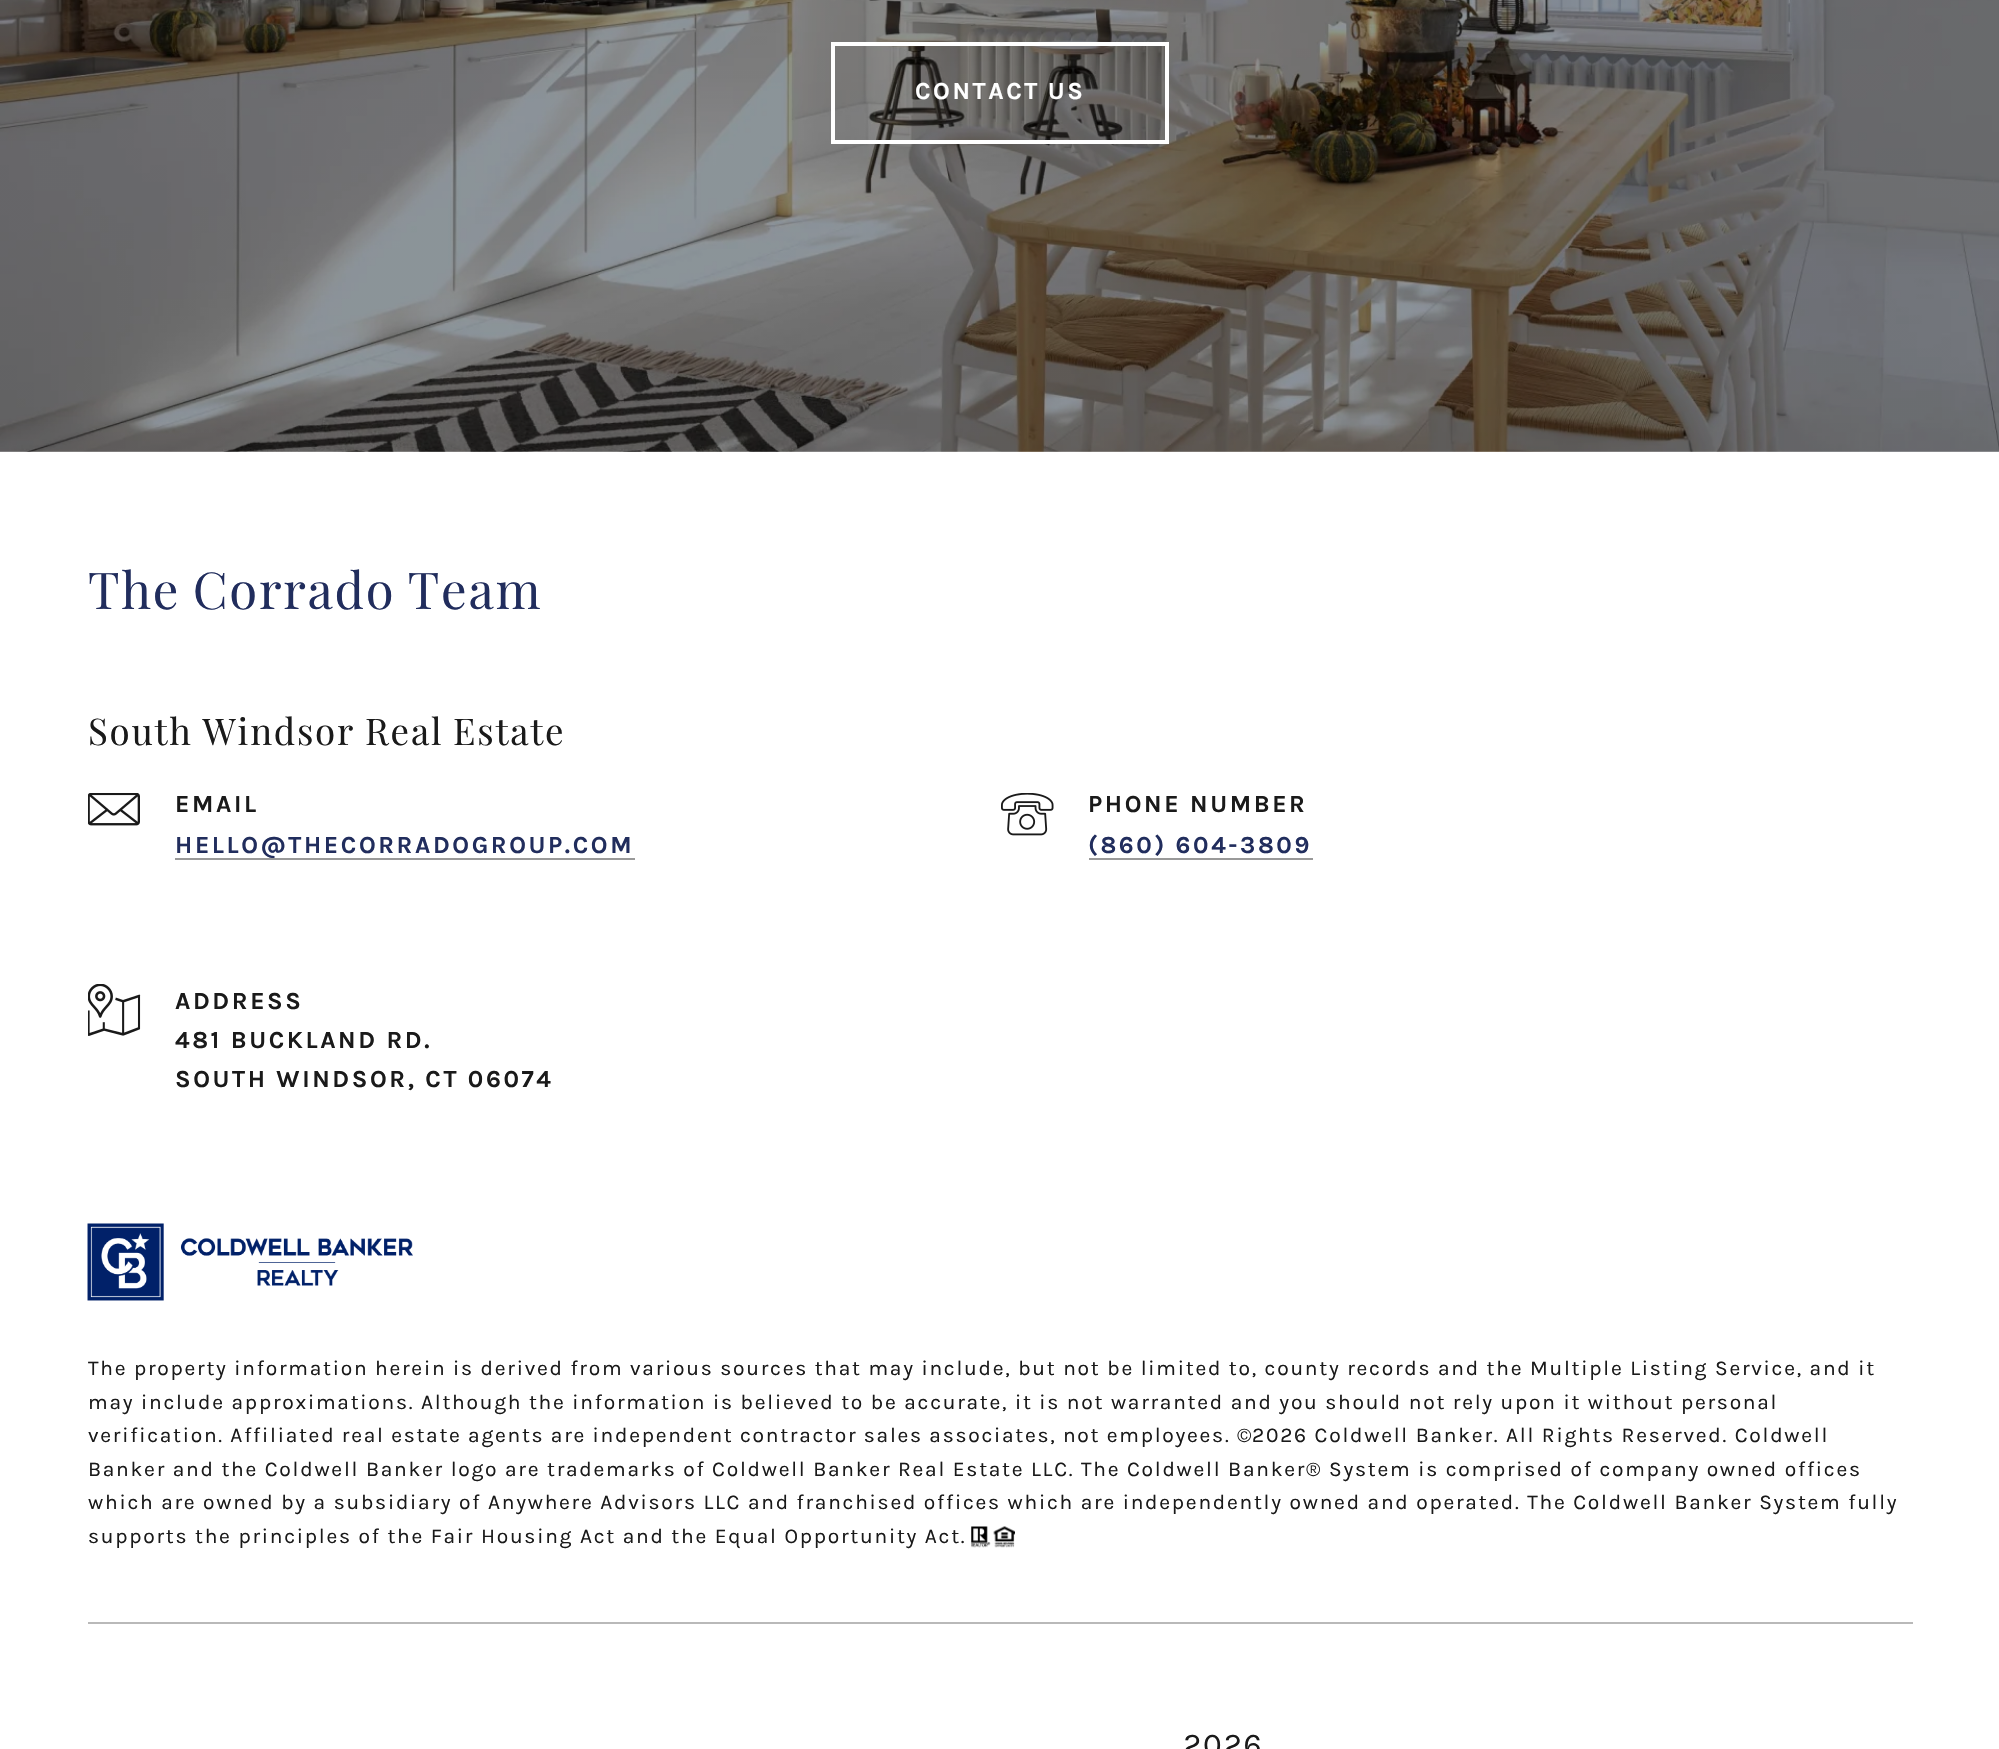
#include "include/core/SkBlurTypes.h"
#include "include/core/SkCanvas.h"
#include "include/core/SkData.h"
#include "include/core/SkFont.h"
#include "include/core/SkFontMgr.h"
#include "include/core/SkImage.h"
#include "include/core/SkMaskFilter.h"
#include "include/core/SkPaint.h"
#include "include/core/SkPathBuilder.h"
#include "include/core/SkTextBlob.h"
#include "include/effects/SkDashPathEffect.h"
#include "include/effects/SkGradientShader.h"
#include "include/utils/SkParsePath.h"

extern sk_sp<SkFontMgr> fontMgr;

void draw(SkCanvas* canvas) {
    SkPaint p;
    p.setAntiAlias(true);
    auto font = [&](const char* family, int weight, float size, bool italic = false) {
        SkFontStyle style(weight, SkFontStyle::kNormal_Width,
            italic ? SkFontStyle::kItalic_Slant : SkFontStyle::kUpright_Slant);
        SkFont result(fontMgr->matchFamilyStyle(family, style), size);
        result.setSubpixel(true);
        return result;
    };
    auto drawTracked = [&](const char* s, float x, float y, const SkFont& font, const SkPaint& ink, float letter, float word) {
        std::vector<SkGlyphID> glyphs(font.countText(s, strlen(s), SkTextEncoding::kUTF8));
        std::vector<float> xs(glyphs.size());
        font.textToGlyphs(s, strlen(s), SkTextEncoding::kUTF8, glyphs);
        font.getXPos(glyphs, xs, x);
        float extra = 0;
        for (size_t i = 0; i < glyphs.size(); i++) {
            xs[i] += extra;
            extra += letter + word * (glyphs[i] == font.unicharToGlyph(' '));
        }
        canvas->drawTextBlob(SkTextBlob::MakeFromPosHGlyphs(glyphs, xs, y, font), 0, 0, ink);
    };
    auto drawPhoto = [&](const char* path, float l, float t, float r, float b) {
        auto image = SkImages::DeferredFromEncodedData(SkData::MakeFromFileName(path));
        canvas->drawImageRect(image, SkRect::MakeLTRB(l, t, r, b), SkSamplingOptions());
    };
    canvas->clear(0xFFFFFFFF);
    drawPhoto("media/1.png", 0, 0, 1999, 452);
    p.setStyle(SkPaint::kStroke_Style);
    p.setStrokeWidth(4);
    p.setColor(0xFFFFFFFF);
    canvas->drawRect(SkRect::MakeLTRB(833, 44, 1167, 142), p);
    auto font1 = font("Karla", 700, 24.5f);
    p.setStyle(SkPaint::kFill_Style);
    drawTracked("CONTACT US", 915, 99, font1, p, 2.6f, -1);
    auto font2 = font("Playfair Display", 400, 50.75f);
    p.setColor(0xFF212D5D);
    drawTracked("The Corrado Team", 88, 609, font2, p, 1.75f, -2);
    auto font3 = font("Playfair Display", 400, 36.75f);
    p.setColor(0xFF1A1A1A);
    drawTracked("South Windsor Real Estate", 88, 745, font3, p, 1.75f, -1);
    drawPhoto("media/2.png", 88, 793, 140, 826);
    drawTracked("EMAIL", 175, 812, font1, p, 2.6f, 0);
    p.setColor(0xFF212D5D);
    drawTracked("HELLO@THECORRADOGROUP.COM", 175, 853, font1, p, 2.6f, 0);
    p.setColor(0xFF999999);
    canvas->drawRect(SkRect::MakeLTRB(175, 858, 635, 860), p);
    drawPhoto("media/3.png", 1001, 793, 1054, 836);
    p.setColor(0xFF1A1A1A);
    drawTracked("PHONE NUMBER", 1088, 812, font1, p, 2.6f, 0);
    p.setColor(0xFF212D5D);
    drawTracked("(860) 604-3809", 1088, 853, font1, p, 2.6f, 0);
    p.setColor(0xFF999999);
    canvas->drawRect(SkRect::MakeLTRB(1089, 858, 1313, 860), p);
    drawPhoto("media/4.png", 88, 984, 141, 1036);
    p.setColor(0xFF1A1A1A);
    {
        const struct { const char* s; float x, y; } items[] = {
            {"ADDRESS", 175, 1009},
            {"481 BUCKLAND RD.", 175, 1048},
            {"SOUTH WINDSOR, CT 06074", 175, 1087},
        };
        for (auto [s, x, y] : items) {
            drawTracked(s, x, y, font1, p, 2.6f, 0);
        }
    }
    drawPhoto("media/5.png", 87, 1223, 413, 1301);
    auto font4 = font("Karla", 400, 21);
    drawTracked("The property information herein is derived from various sources that may include, but not be limited to, county records and the Multiple Listing Service, and it", 88, 1375, font4, p, 1.75f, 0);
    drawTracked("may include approximations. Although the information is believed to be accurate, it is not warranted and you should not rely upon it without personal", 88, 1409, font4, p, 1.75f, 0);
    drawTracked("verification. Affiliated real estate agents are independent contractor sales associates, not employees. ©", 88, 1442, font4, p, 1.75f, -0.25f);
    {
        const struct { const char* s; float x, y; } items[] = {
            {"2026 Coldwell Banker. All Rights Reserved. Coldwell", 1252, 1442},
            {"Banker and the Coldwell Banker logo are trademarks of Coldwell Banker Real Estate LLC. The Coldwell Banker® System is comprised of company owned offices", 88, 1476},
            {"which are owned by a subsidiary of Anywhere Advisors LLC and franchised offices which are independently owned and operated. The Coldwell Banker System fully", 88, 1509},
            {"supports the principles of the Fair Housing Act and the Equal Opportunity Act.", 88, 1543},
        };
        for (auto [s, x, y] : items) {
            drawTracked(s, x, y, font4, p, 1.75f, 0);
        }
    }
    drawPhoto("media/6.png", 971, 1526, 1015, 1548);
    p.setColor(0xFFB9B9B9);
    canvas->drawRect(SkRect::MakeLTRB(88, 1622, 1913, 1624), p);
    auto font5 = font("Karla", 400, 31.5f);
    p.setColor(0xFF1A1A1A);
    drawTracked("2026", 1183, 1755, font5, p, 1.75f, 0);
}
